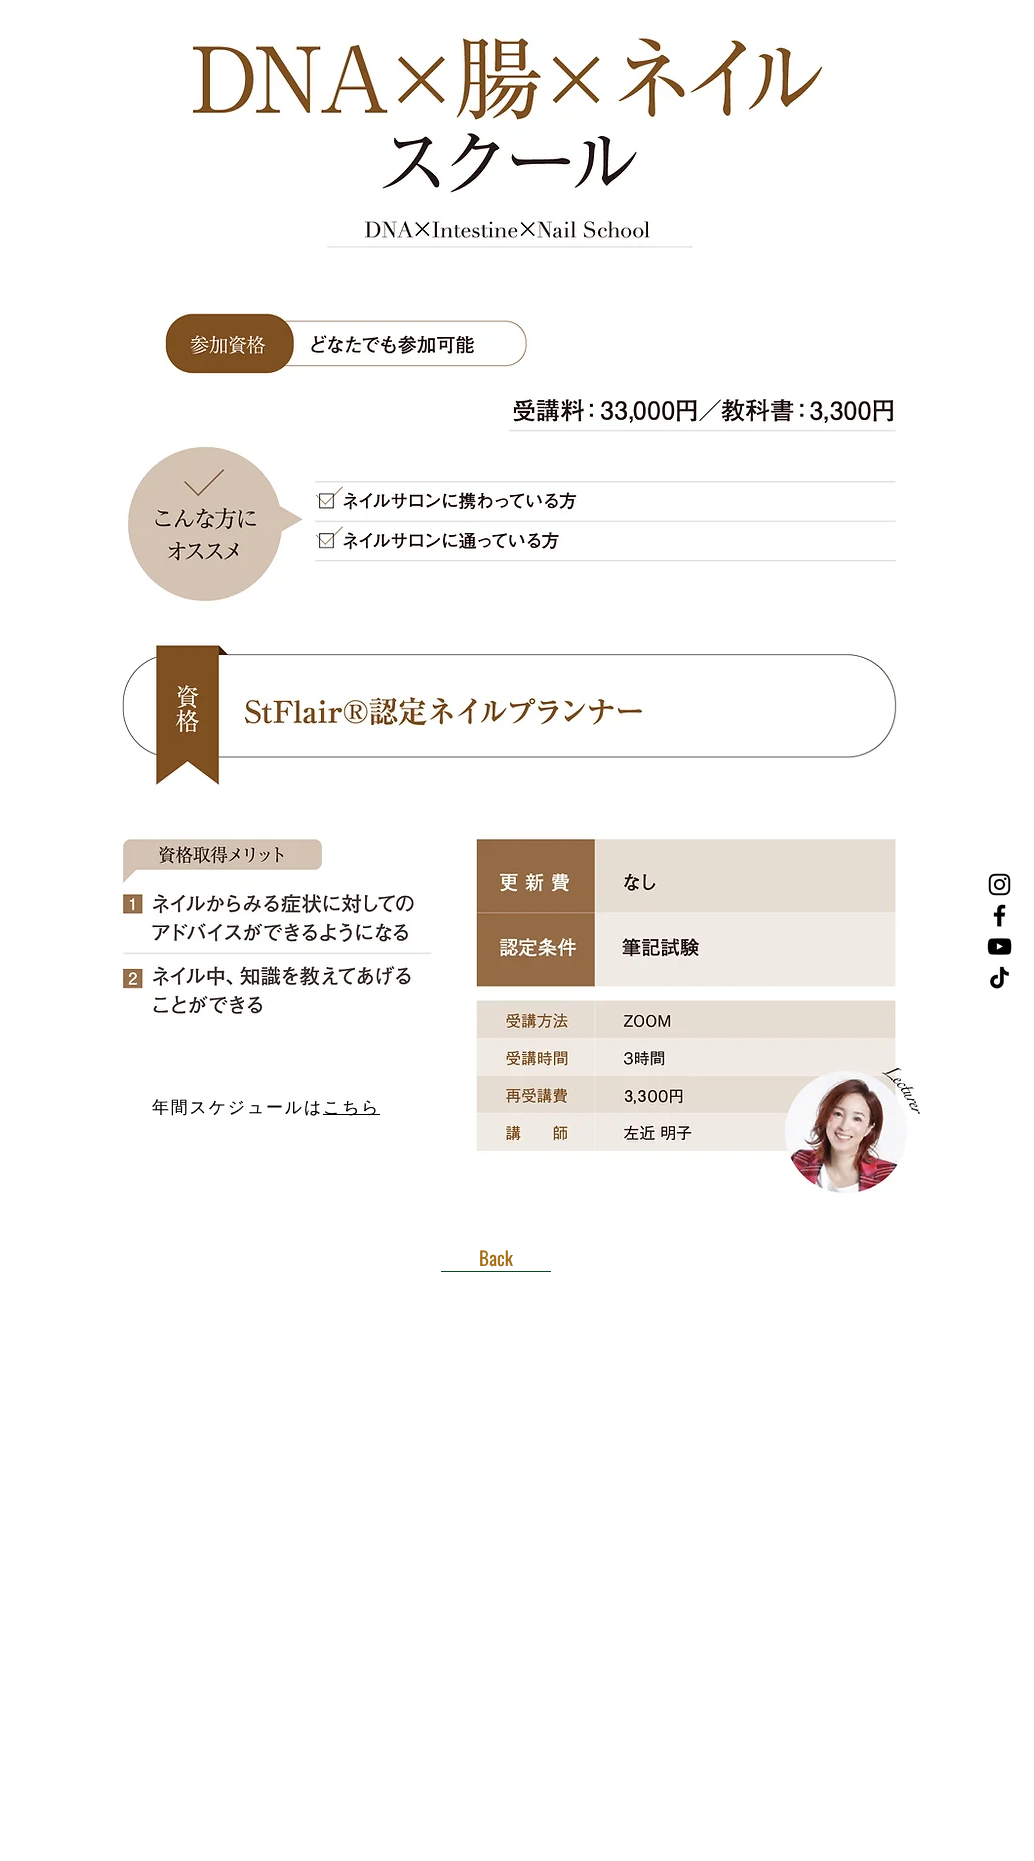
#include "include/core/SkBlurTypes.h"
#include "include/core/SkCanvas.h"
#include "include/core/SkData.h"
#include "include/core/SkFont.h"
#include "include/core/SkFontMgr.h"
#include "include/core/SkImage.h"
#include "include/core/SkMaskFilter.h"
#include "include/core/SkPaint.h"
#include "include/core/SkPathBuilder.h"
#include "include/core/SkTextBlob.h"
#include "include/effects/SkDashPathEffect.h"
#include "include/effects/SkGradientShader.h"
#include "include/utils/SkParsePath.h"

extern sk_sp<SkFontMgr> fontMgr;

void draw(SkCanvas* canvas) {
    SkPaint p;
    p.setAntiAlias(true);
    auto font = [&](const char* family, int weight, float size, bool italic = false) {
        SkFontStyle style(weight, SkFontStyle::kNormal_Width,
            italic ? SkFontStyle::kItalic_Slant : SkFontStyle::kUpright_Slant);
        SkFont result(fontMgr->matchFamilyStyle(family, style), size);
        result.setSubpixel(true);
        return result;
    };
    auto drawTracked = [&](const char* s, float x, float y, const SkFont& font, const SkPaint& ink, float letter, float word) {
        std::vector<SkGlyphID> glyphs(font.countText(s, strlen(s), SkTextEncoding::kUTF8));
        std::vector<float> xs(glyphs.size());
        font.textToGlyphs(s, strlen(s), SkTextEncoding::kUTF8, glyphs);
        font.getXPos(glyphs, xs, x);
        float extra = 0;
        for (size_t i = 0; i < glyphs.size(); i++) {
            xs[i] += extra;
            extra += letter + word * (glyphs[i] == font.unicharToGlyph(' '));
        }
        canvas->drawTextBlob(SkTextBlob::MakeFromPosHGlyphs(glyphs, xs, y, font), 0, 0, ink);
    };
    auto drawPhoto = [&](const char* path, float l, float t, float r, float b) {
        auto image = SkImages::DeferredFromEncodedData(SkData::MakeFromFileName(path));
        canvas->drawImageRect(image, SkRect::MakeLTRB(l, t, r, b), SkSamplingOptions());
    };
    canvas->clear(0xFFFFFFFF);
    drawPhoto("media/1.png", 988, 873, 1011, 896);
    drawPhoto("media/2.png", 993, 904, 1006, 927);
    drawPhoto("media/3.png", 987, 938, 1012, 955);
    drawPhoto("media/4.png", 990, 966, 1009, 989);
    drawPhoto("media/5.png", 117, 32, 921, 1194);
    p.setColor(0xFFFFFFFF);
    canvas->drawRect(SkRect::MakeLTRB(133, 1040, 393, 1156), p);
    auto font1 = font("WenQuanYi Zen Hei", 500, 17);
    p.setColor(0xFF000000);
    drawTracked("年間スケジュールは", 152, 1113, font1, p, 1.75f, 0);
    canvas->drawRect(SkRect::MakeLTRB(323, 1114, 380, 1115), p);
    drawTracked("こちら", 323, 1113, font1, p, 1.75f, 0);
    p.setColor(0xFF0C4426);
    canvas->drawRect(SkRect::MakeLTRB(441, 1271, 551, 1272), p);
    auto font2 = font("Oswald", 400, 19);
    p.setColor(0xFFA66C15);
    canvas->drawString("Back", 479, 1266, font2, p);
}
